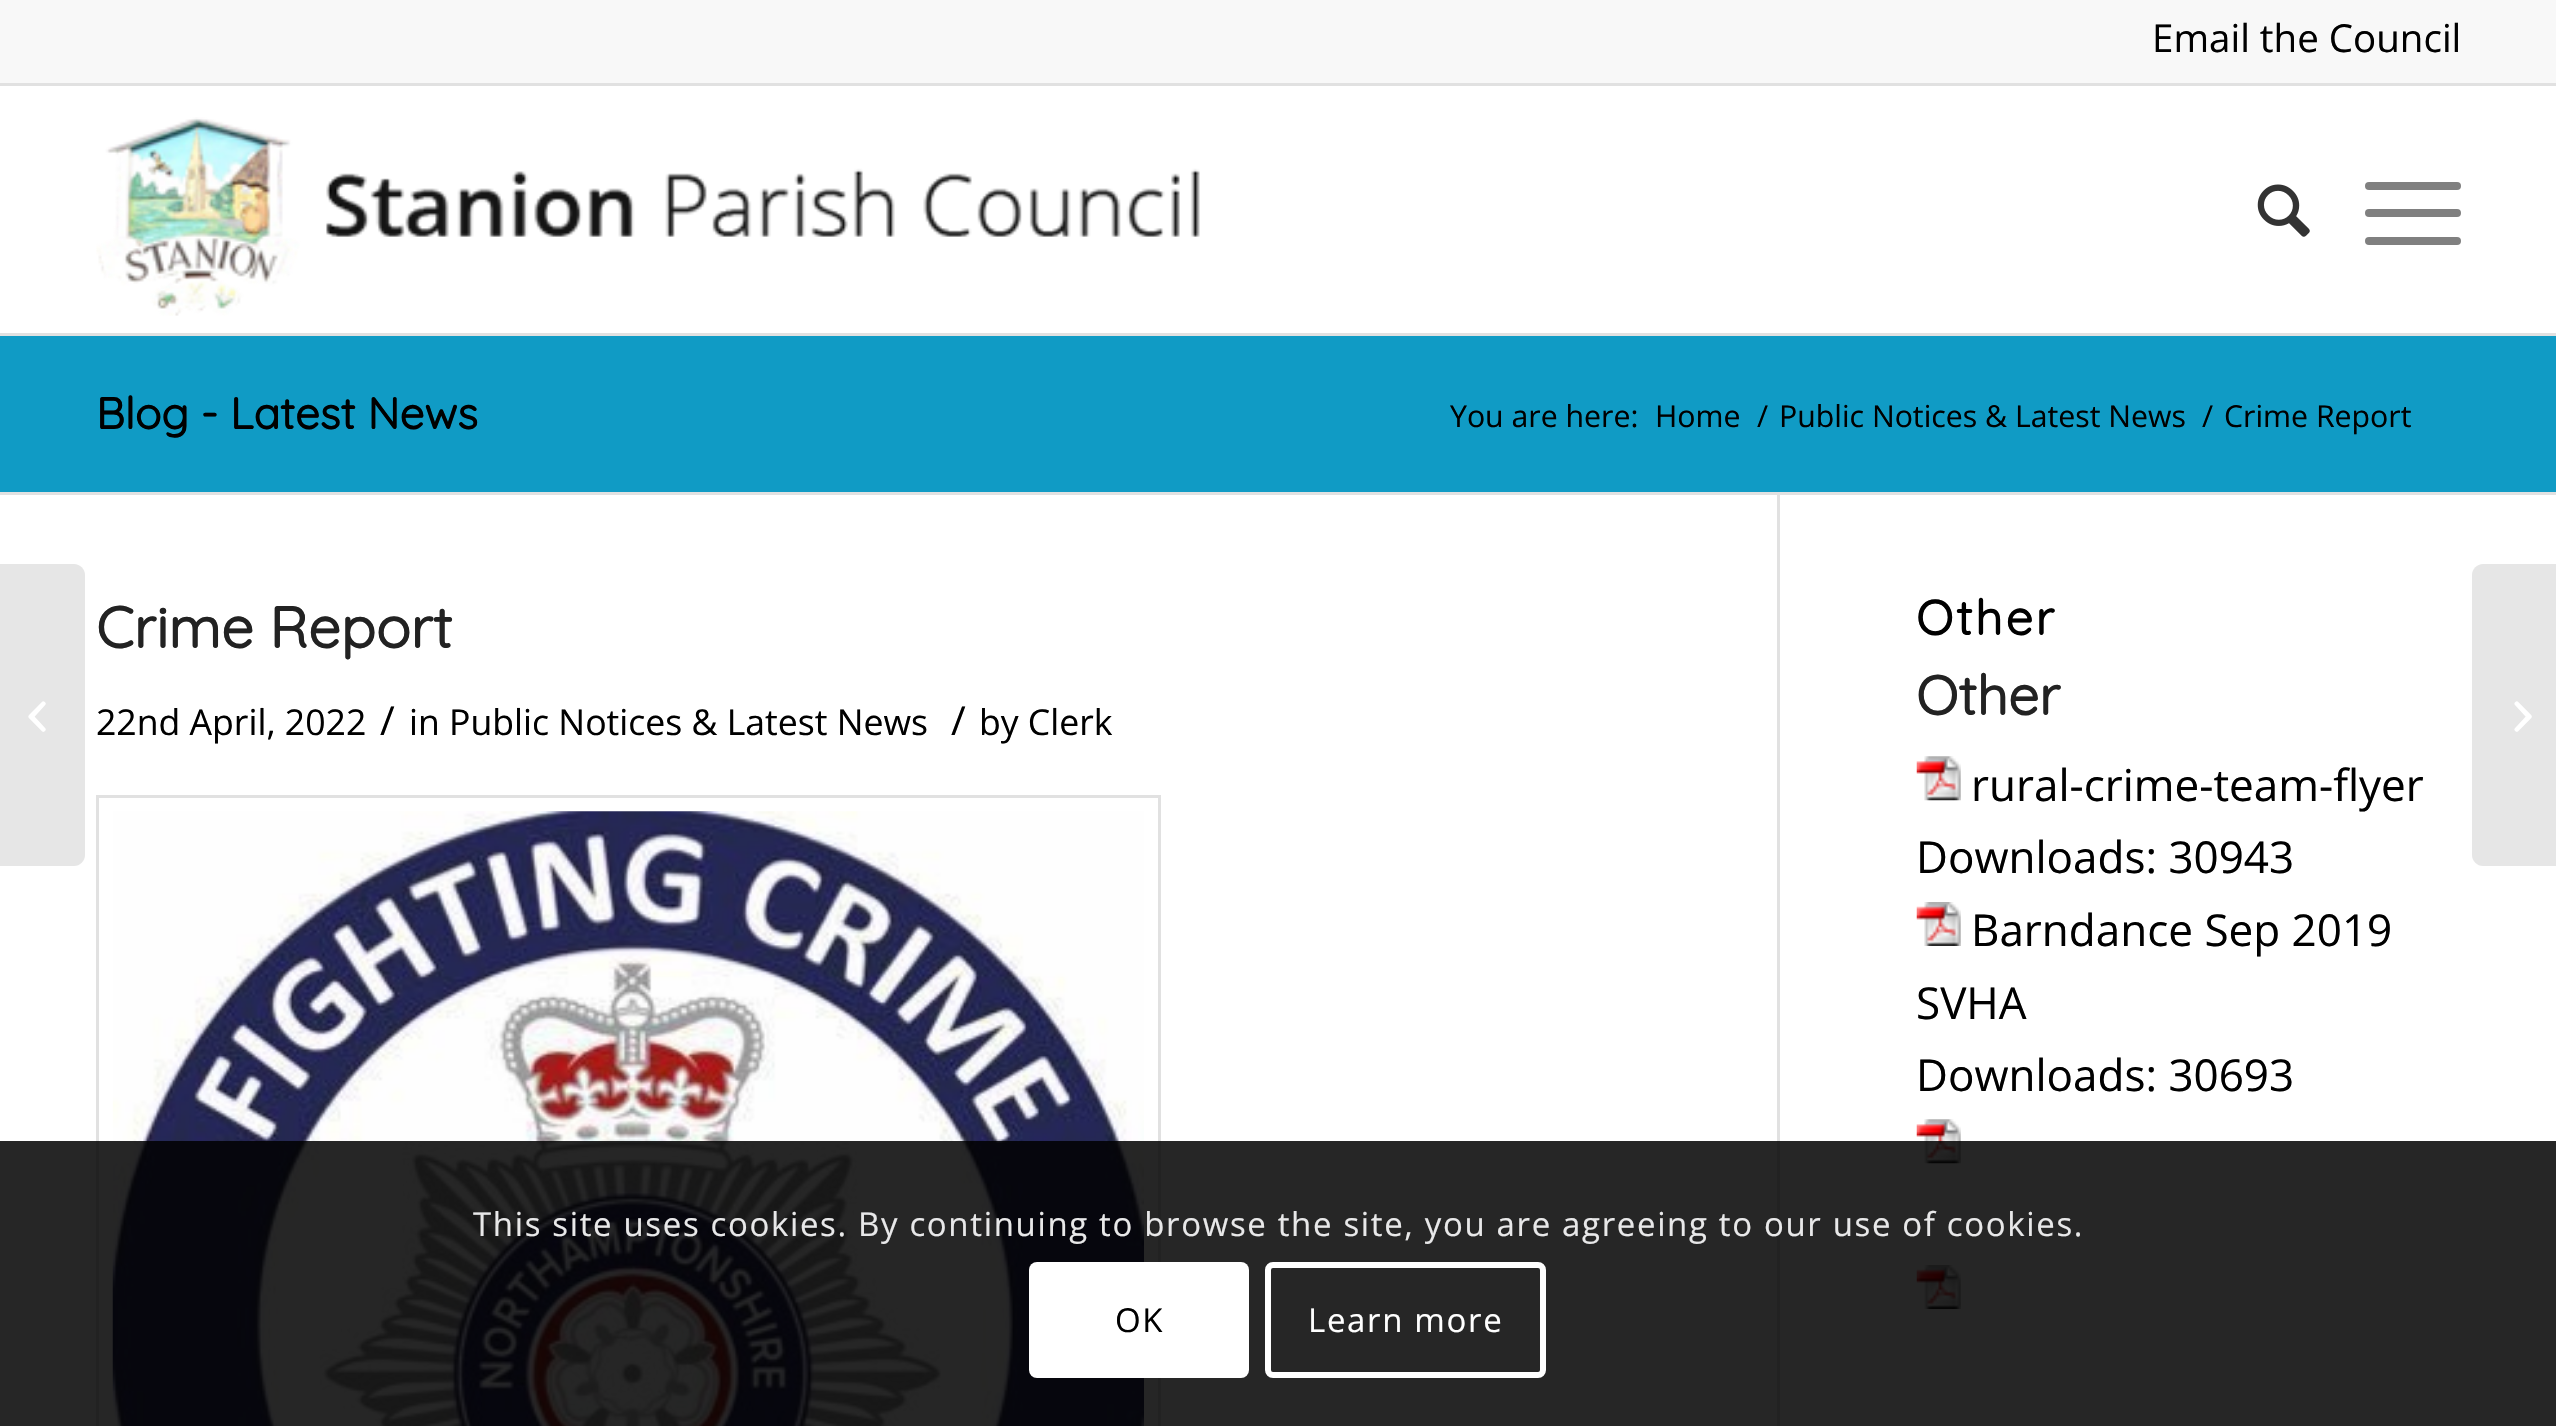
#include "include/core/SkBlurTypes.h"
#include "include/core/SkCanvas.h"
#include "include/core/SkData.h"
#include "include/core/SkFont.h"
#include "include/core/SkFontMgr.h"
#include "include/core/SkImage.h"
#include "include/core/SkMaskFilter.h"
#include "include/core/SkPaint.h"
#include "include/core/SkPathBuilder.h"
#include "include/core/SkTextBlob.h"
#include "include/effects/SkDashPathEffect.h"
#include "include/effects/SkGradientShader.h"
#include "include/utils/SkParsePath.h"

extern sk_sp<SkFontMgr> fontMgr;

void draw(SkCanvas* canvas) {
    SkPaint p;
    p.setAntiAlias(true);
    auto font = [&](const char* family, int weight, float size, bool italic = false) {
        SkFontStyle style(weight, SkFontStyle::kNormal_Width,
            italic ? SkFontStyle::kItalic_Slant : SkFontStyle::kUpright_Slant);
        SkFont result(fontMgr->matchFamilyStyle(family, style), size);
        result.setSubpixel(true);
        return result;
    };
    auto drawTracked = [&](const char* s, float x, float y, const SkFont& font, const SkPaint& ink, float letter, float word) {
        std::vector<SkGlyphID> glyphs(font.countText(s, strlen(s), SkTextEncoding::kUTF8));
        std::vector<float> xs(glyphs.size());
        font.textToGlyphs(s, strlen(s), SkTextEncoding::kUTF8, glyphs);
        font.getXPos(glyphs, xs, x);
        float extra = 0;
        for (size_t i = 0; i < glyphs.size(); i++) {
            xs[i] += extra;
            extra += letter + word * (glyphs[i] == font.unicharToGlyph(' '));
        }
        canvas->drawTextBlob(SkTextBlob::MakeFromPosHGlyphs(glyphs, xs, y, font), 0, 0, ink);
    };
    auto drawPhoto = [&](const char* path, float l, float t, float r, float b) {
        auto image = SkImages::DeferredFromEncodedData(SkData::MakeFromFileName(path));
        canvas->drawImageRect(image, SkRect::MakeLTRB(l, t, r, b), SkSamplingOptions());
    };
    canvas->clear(0xFFFFFFFF);
    p.setColor(0xFFF8F8F8);
    canvas->drawRect(SkRect::MakeLTRB(0, 0, 2556, 83), p);
    p.setColor(0xFFE1E1E1);
    canvas->drawRect(SkRect::MakeLTRB(0, 83, 2556, 86), p);
    auto font1 = font("Open Sans", 400, 38.5f);
    p.setColor(0xFF000000);
    canvas->drawString("Email the Council", 2152, 52, font1, p);
    p.setColor(0xFFE1E1E1);
    canvas->drawRect(SkRect::MakeLTRB(0, 333, 2556, 336), p);
    drawPhoto("media/1.png", 96, 117, 1200, 316);
    drawPhoto("media/2.png", 2257, 184, 2310, 237);
    p.setColor(0xFF808080);
    canvas->drawRoundRect(SkRect::MakeLTRB(2365, 209, 2461, 217), 4, 4, p);
    canvas->drawRoundRect(SkRect::MakeLTRB(2365, 182, 2461, 190), 4, 4, p);
    canvas->drawRoundRect(SkRect::MakeLTRB(2365, 237, 2461, 245), 4, 4, p);
    p.setColor(0xFFE6E6E6);
    canvas->drawPath(SkPathBuilder().moveTo(0, 564).lineTo(74, 564).cubicTo(80, 564, 85, 569, 85, 575).lineTo(85, 855).cubicTo(85, 861, 80, 866, 74, 866).lineTo(0, 866).close().detach(), p);
    drawPhoto("media/3.png", 28, 701, 46, 732);
    p.setColor(0xFF109BC5);
    canvas->drawRect(SkRect::MakeLTRB(0, 336, 2556, 492), p);
    auto font2 = font("Quicksand", 700, 44);
    p.setColor(0xFF000000);
    canvas->drawString("Blog - Latest News", 96, 429, font2, p);
    auto font3 = font("Open Sans", 400, 30.25f);
    {
        const struct { const char* s; float x, y; } items[] = {
            {"You are here:", 1450, 427},
            {"Home", 1655, 427},
            {"/", 1757, 427},
            {"Public Notices & Latest News", 1779, 427},
            {"/", 2202, 427},
            {"Crime Report", 2224, 427},
        };
        for (auto [s, x, y] : items) {
            canvas->drawString(s, x, y, font3, p);
        }
    }
    p.setColor(0xFFE1E1E1);
    canvas->drawRect(SkRect::MakeLTRB(0, 492, 2556, 495), p);
    canvas->drawRect(SkRect::MakeLTRB(1777, 495, 1780, 1426), p);
    auto font4 = font("Quicksand", 700, 57.75f);
    p.setColor(0xFF222222);
    canvas->drawString("Crime Report", 96, 648, font4, p);
    auto font5 = font("Open Sans", 400, 35.6f);
    p.setColor(0xFF000000);
    canvas->drawString("22nd April, 2022", 96, 735, font5, p);
    auto font6 = font("Open Sans", 400, 40);
    canvas->drawString("/", 380, 735, font6, p);
    canvas->drawString("in Public Notices & Latest News", 409, 735, font5, p);
    canvas->drawString("/", 951, 735, font6, p);
    canvas->drawString("by Clerk", 979, 735, font5, p);
    p.setStyle(SkPaint::kStroke_Style);
    p.setStrokeWidth(3);
    p.setColor(0xFFE1E1E1);
    canvas->drawRect(SkRect::MakeLTRB(97.5f, 796.5f, 1159.5f, 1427.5f), p);
    drawPhoto("media/4.png", 112, 811, 1144, 1426);
    auto font7 = font("Quicksand", 700, 48.5f);
    p.setStyle(SkPaint::kFill_Style);
    p.setColor(0xFF000000);
    drawTracked("Other", 1916, 635, font7, p, 2.75f, 0);
    auto font8 = font("Quicksand", 700, 55);
    p.setColor(0xFF222222);
    canvas->drawString("Other", 1916, 715, font8, p);
    drawPhoto("media/5.png", 1916, 756, 1961, 801);
    auto font9 = font("Open Sans", 400, 44);
    p.setColor(0xFF000000);
    canvas->drawString("rural-crime-team-flyer", 1971, 801, font9, p);
    canvas->drawString("Downloads: 30943", 1916, 873, font9, p);
    drawPhoto("media/6.png", 1916, 902, 1961, 946);
    {
        const struct { const char* s; float x, y; } items[] = {
            {"Barndance Sep 2019", 1971, 946},
            {"SVHA", 1916, 1019},
            {"Downloads: 30693", 1916, 1091},
        };
        for (auto [s, x, y] : items) {
            canvas->drawString(s, x, y, font9, p);
        }
    }
    drawPhoto("media/5.png", 1916, 1119, 1961, 1164);
    drawPhoto("media/6.png", 1916, 1265, 1961, 1309);
    p.setColor(0xFFE6E6E6);
    canvas->drawPath(SkPathBuilder().moveTo(2483, 564).lineTo(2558, 564).lineTo(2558, 866).lineTo(2483, 866).cubicTo(2477, 866, 2472, 861, 2472, 855).lineTo(2472, 575).cubicTo(2472, 569, 2477, 564, 2483, 564).close().detach(), p);
    drawPhoto("media/7.png", 2514, 701, 2532, 732);
    p.setColor(0xD9000000);
    canvas->drawRect(SkRect::MakeLTRB(0, 1141, 2556, 1426), p);
    auto font10 = font("Open Sans", 400, 33);
    p.setColor(0xFFE8E8E9);
    drawTracked("This site uses cookies. By continuing to browse the site, you are agreeing to our use of cookies.", 473, 1236, font10, p, 1.65f, 0);
    p.setColor(0xFFFFFFFF);
    canvas->drawRoundRect(SkRect::MakeLTRB(1029, 1262, 1249, 1378), 8, 8, p);
    p.setColor(0xFF000000);
    drawTracked("OK", 1115, 1332, font10, p, 1.65f, 0);
    p.setStyle(SkPaint::kStroke_Style);
    p.setStrokeWidth(6);
    p.setColor(0xFFFFFFFF);
    canvas->drawRoundRect(SkRect::MakeLTRB(1268, 1265, 1543, 1375), 5, 5, p);
    p.setStyle(SkPaint::kFill_Style);
    drawTracked("Learn more", 1308, 1332, font10, p, 1.65f, 0);
}
